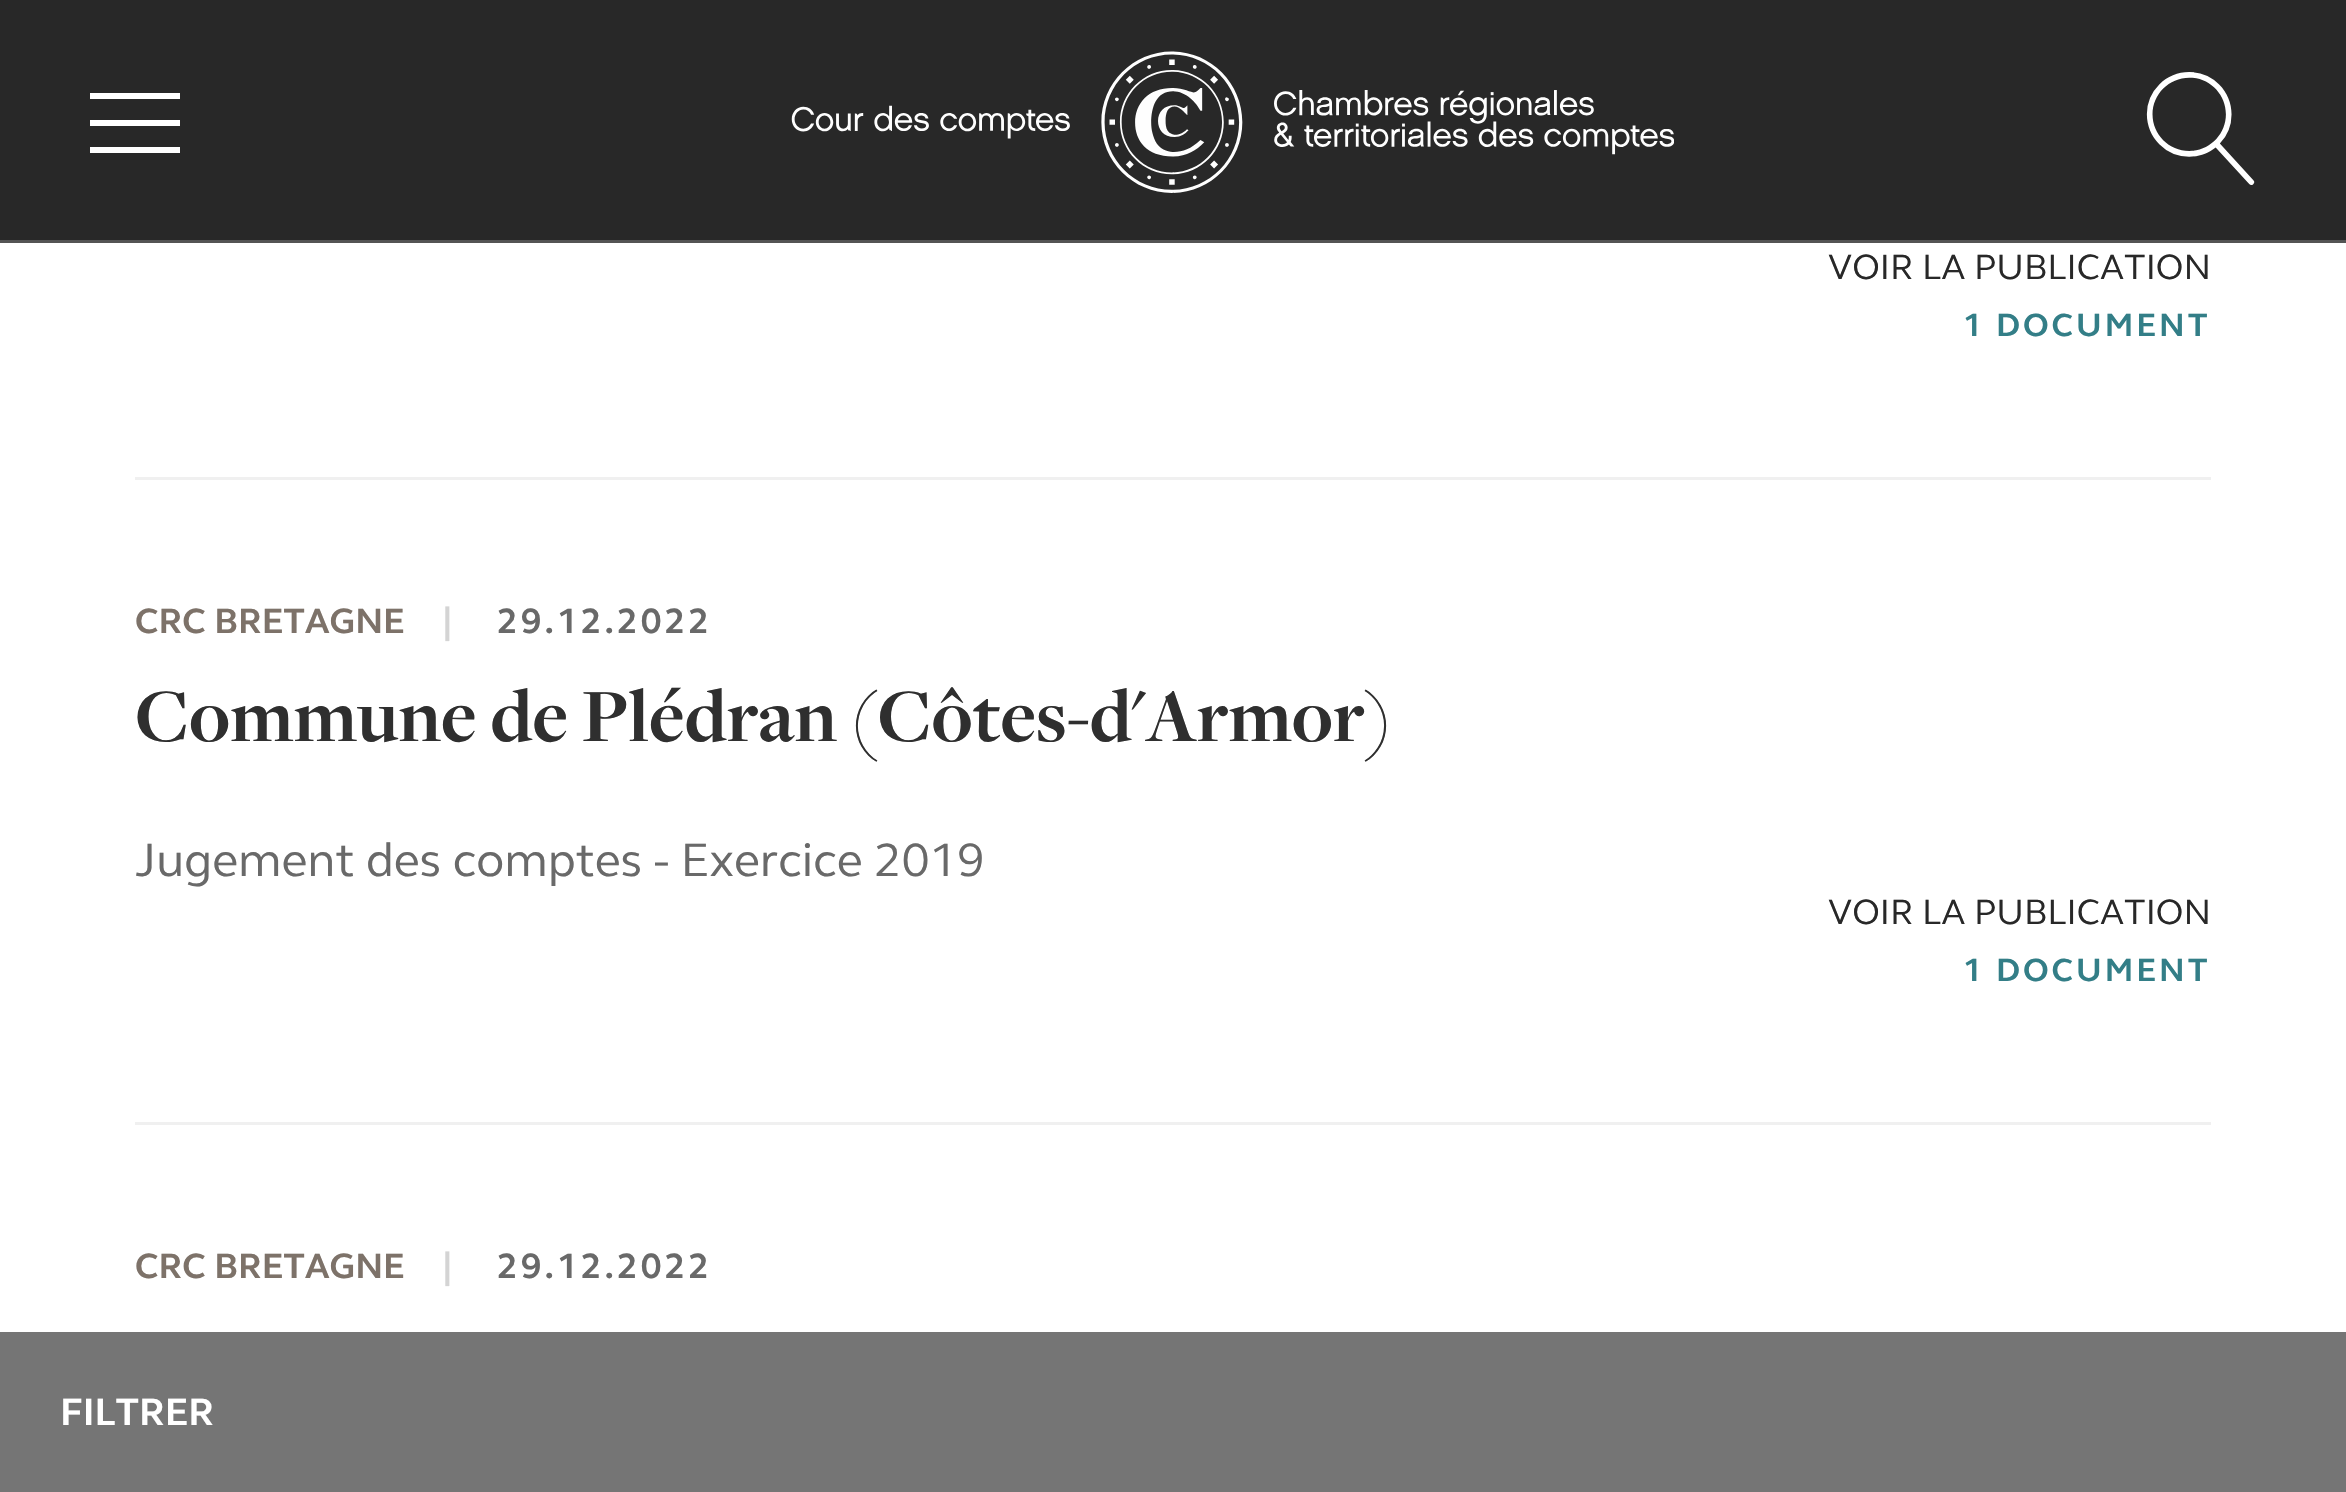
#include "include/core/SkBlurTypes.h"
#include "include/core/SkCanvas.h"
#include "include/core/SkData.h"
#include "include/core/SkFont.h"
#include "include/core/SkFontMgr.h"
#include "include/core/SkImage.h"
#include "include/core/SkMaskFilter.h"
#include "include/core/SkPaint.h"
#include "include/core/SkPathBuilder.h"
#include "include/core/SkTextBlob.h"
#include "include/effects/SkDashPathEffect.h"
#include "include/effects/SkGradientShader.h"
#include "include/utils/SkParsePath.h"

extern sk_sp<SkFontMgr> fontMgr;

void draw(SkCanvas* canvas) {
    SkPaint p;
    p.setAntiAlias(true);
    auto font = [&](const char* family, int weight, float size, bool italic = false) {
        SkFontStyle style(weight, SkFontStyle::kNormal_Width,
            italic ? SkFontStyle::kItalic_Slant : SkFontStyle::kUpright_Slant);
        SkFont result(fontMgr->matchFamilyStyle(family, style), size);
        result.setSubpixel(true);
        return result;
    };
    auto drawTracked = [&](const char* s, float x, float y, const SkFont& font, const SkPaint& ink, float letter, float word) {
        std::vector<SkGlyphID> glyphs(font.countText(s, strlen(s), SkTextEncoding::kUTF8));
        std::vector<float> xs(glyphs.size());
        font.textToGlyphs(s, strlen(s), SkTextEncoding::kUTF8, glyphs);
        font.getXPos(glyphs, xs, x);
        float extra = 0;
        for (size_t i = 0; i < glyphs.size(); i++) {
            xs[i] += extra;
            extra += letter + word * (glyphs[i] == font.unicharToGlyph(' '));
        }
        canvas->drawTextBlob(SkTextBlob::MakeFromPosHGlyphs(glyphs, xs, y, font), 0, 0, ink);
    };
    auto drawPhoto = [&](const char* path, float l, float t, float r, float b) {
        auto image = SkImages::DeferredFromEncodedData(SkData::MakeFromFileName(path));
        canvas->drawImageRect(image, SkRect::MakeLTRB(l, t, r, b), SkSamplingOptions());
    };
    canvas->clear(0xFFFFFFFF);
    {
        const struct { float l, t, r, b; SkColor color; } items[] = {
            {0, 0, 2346, 240, 0xFF282828},
            {90, 120, 180, 126, 0xFFFFFFFF},
            {90, 93, 180, 99, 0xFFFFFFFF},
            {90, 147, 180, 153, 0xFFFFFFFF},
        };
        for (auto [l, t, r, b, color] : items) {
            p.setColor(color);
            canvas->drawRect(SkRect::MakeLTRB(l, t, r, b), p);
        }
    }
    drawPhoto("media/1.png", 791, 51, 1674, 193);
    drawPhoto("media/2.png", 2146, 72, 2255, 185);
    p.setColor(0xFF545454);
    canvas->drawRect(SkRect::MakeLTRB(0, 240, 2346, 243), p);
    p.setColor(0xFFF0F0F0);
    canvas->drawRect(SkRect::MakeLTRB(135, 477, 2211, 480), p);
    auto font1 = font("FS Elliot", 400, 36);
    p.setColor(0xFF282828);
    canvas->drawString("VOIR LA PUBLICATION", 1828, 279, font1, p);
    auto font2 = font("FS Elliot", 700, 33);
    p.setColor(0xFF337E87);
    drawTracked("1 DOCUMENT", 1963, 336, font2, p, 3, 0);
    p.setColor(0xFFF0F0F0);
    canvas->drawRect(SkRect::MakeLTRB(135, 1122, 2211, 1125), p);
    auto font3 = font("FS Elliot", 700, 36);
    p.setColor(0xFF7D7269);
    canvas->drawString("CRC BRETAGNE", 135, 633, font3, p);
    p.setColor(0xFFD4D4D4);
    drawTracked("|", 443, 633, font3, p, 3, 0);
    p.setColor(0xFF696969);
    drawTracked("29.12.2022", 497, 633, font3, p, 3, 0);
    auto font4 = font("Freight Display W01", 700, 78);
    p.setColor(0xFF2F2F2F);
    canvas->drawString("Commune de Plédran (Côtes-d'Armor)", 135, 741, font4, p);
    auto font5 = font("FS Elliot", 400, 48);
    p.setColor(0xFF696969);
    canvas->drawString("Jugement des comptes - Exercice 2019", 135, 876, font5, p);
    p.setColor(0xFF282828);
    canvas->drawString("VOIR LA PUBLICATION", 1828, 924, font1, p);
    p.setColor(0xFF337E87);
    drawTracked("1 DOCUMENT", 1963, 981, font2, p, 3, 0);
    p.setColor(0xFF7D7269);
    canvas->drawString("CRC BRETAGNE", 135, 1278, font3, p);
    p.setColor(0xFFD4D4D4);
    drawTracked("|", 443, 1278, font3, p, 3, 0);
    p.setColor(0xFF696969);
    drawTracked("29.12.2022", 497, 1278, font3, p, 3, 0);
    p.setColor(0xFF757575);
    canvas->drawRect(SkRect::MakeLTRB(0, 1332, 2346, 1492), p);
    auto font6 = font("FS Elliot", 700, 39);
    p.setColor(0xFFFFFFFF);
    canvas->drawString("FILTRER", 60, 1425, font6, p);
}
